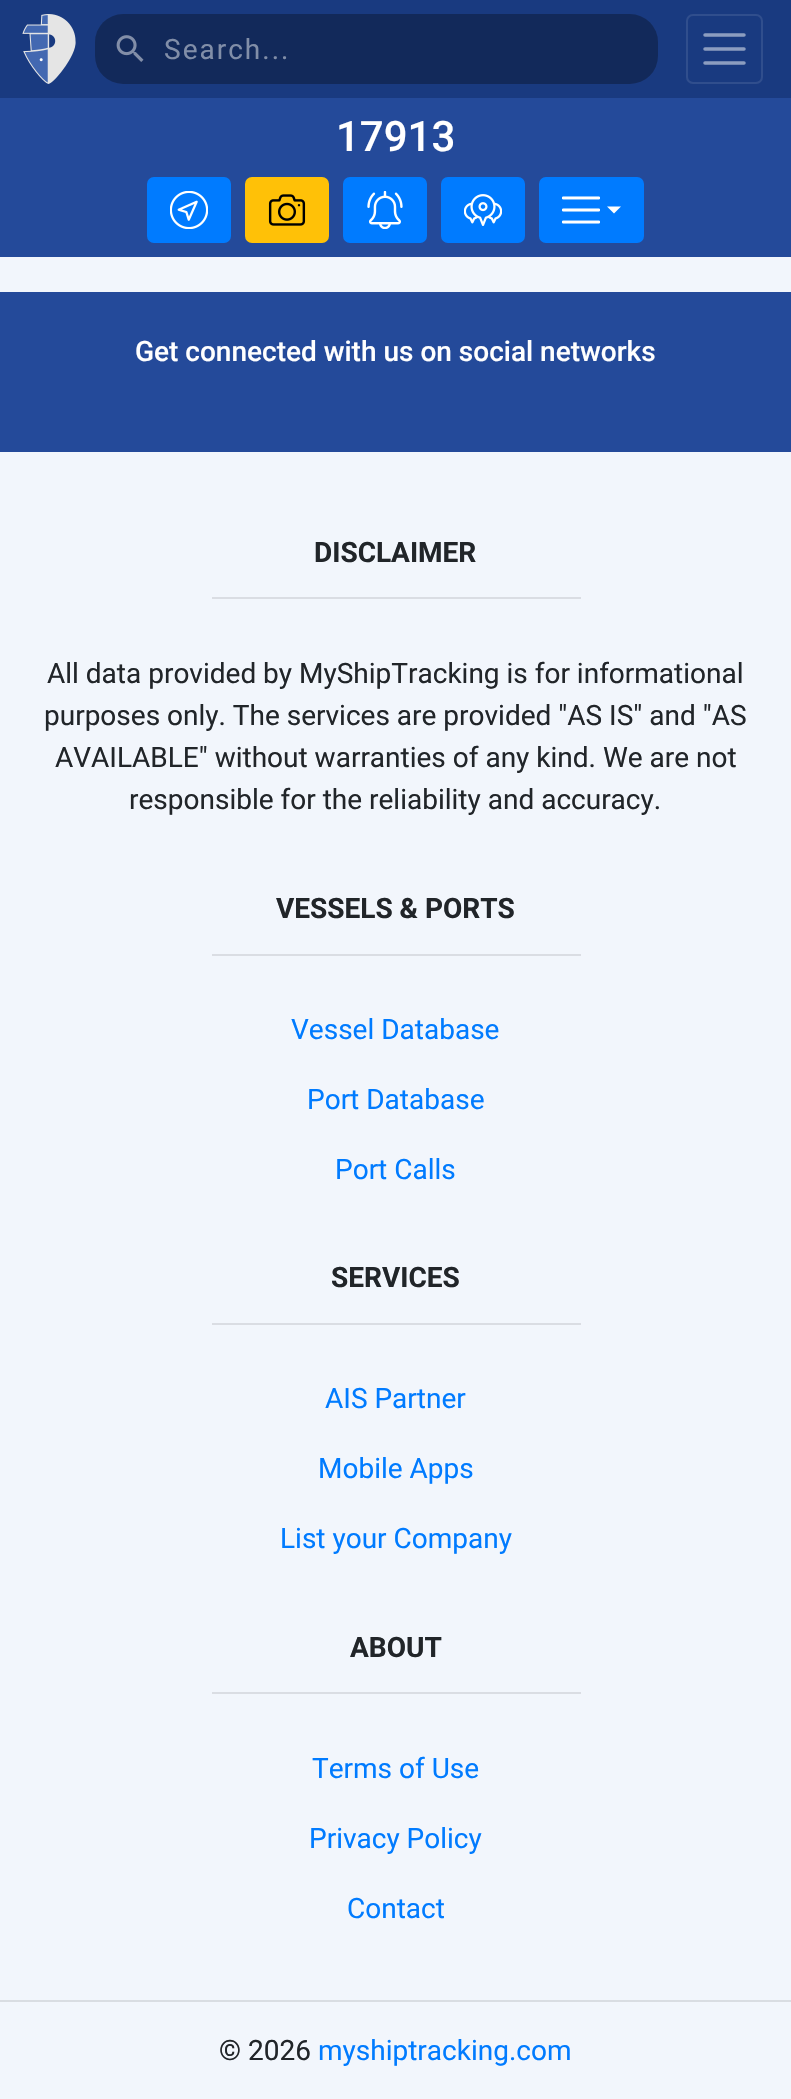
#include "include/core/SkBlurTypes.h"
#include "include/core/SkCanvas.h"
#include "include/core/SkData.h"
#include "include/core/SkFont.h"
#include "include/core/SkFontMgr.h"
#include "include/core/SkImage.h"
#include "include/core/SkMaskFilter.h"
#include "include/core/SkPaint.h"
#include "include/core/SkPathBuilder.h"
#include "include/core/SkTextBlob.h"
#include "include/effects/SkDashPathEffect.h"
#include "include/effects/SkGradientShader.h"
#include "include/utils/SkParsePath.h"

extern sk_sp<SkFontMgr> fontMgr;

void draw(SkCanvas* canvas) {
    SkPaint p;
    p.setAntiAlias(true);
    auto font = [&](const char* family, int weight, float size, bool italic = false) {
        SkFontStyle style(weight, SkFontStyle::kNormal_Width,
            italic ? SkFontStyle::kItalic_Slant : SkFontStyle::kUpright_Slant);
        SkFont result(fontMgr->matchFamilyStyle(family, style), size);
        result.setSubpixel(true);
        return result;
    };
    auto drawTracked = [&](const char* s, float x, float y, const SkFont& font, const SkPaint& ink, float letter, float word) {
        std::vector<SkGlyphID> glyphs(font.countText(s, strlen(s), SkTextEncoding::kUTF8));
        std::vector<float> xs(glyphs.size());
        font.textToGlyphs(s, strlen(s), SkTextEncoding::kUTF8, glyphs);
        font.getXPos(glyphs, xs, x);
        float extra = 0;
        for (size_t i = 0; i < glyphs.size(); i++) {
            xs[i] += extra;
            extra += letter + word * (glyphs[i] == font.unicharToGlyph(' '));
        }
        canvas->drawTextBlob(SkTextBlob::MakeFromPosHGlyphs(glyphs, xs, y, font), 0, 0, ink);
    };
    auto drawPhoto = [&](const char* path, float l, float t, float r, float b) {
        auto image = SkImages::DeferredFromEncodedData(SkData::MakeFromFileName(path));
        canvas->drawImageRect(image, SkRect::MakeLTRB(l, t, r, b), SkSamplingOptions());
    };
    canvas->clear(0xFFF2F6FC);
    p.setColor(0xFF193A80);
    canvas->drawRect(SkRect::MakeLTRB(0, 0, 791, 98), p);
    drawPhoto("media/1.png", 22, 14, 76, 84);
    p.setColor(0xFF12295A);
    canvas->drawRoundRect(SkRect::MakeLTRB(95, 14, 658, 84), 28, 28, p);
    drawPhoto("media/2.png", 116, 35, 144, 62);
    auto font1 = font("Roboto", 400, 28);
    p.setColor(0xFF818EA8);
    drawTracked("Search...", 164, 59, font1, p, 2, 0);
    p.setStyle(SkPaint::kStroke_Style);
    p.setStrokeWidth(2);
    p.setColor(0xFF304E8D);
    canvas->drawRoundRect(SkRect::MakeLTRB(687, 15, 762, 83), 6, 6, p);
    p.setStrokeWidth(3.5f);
    p.setStrokeCap(SkPaint::kRound_Cap);
    p.setColor(0xFF8C9DC0);
    canvas->drawPath(SkPathBuilder().moveTo(705, 35).lineTo(744, 35).moveTo(705, 49).lineTo(744, 49).moveTo(705, 63).lineTo(744, 63).detach(), p);
    p.setStyle(SkPaint::kFill_Style);
    p.setColor(0xFF244A9A);
    canvas->drawRect(SkRect::MakeLTRB(0, 98, 791, 257), p);
    auto font2 = font("Roboto", 500, 42);
    p.setColor(0xFFFFFFFF);
    canvas->drawString("17913", 336, 151, font2, p);
    p.setColor(0xFF007BFF);
    canvas->drawRoundRect(SkRect::MakeLTRB(148, 178, 230, 242), 6, 6, p);
    p.setStyle(SkPaint::kStroke_Style);
    p.setStrokeWidth(2);
    p.setStrokeCap(SkPaint::kButt_Cap);
    canvas->drawRoundRect(SkRect::MakeLTRB(148, 178, 230, 242), 6, 6, p);
    drawPhoto("media/3.png", 170, 191, 208, 229);
    p.setStyle(SkPaint::kFill_Style);
    p.setColor(0xFFFFC107);
    canvas->drawRoundRect(SkRect::MakeLTRB(246, 178, 328, 242), 6, 6, p);
    p.setStyle(SkPaint::kStroke_Style);
    canvas->drawRoundRect(SkRect::MakeLTRB(246, 178, 328, 242), 6, 6, p);
    drawPhoto("media/4.png", 268, 194, 306, 226);
    p.setStyle(SkPaint::kFill_Style);
    p.setColor(0xFF007BFF);
    canvas->drawRoundRect(SkRect::MakeLTRB(344, 178, 426, 242), 6, 6, p);
    p.setStyle(SkPaint::kStroke_Style);
    canvas->drawRoundRect(SkRect::MakeLTRB(344, 178, 426, 242), 6, 6, p);
    drawPhoto("media/5.png", 367, 191, 403, 229);
    p.setStyle(SkPaint::kFill_Style);
    canvas->drawRoundRect(SkRect::MakeLTRB(442, 178, 524, 242), 6, 6, p);
    p.setStyle(SkPaint::kStroke_Style);
    canvas->drawRoundRect(SkRect::MakeLTRB(442, 178, 524, 242), 6, 6, p);
    drawPhoto("media/6.png", 464, 194, 502, 226);
    p.setStyle(SkPaint::kFill_Style);
    canvas->drawRoundRect(SkRect::MakeLTRB(540, 178, 643, 242), 6, 6, p);
    p.setStyle(SkPaint::kStroke_Style);
    canvas->drawRoundRect(SkRect::MakeLTRB(540, 178, 643, 242), 6, 6, p);
    drawPhoto("media/7.png", 562, 196, 600, 224);
    p.setStyle(SkPaint::kFill_Style);
    p.setColor(0xFFFFFFFF);
    canvas->drawPath(SkPathBuilder().moveTo(607, 206.5f).lineTo(621, 206.5f).lineTo(614, 213.5f).close().detach(), p);
    p.setColor(0xFF244A9A);
    canvas->drawRect(SkRect::MakeLTRB(0, 292, 791, 452), p);
    auto font3 = font("Roboto", 500, 28);
    p.setColor(0xFFFFFFFF);
    canvas->drawString("Get connected with us on social networks", 135, 361, font3, p);
    auto font4 = font("Roboto", 700, 28);
    p.setColor(0xFF212529);
    canvas->drawString("DISCLAIMER", 314, 562, font4, p);
    p.setColor(0xFFDADDE3);
    canvas->drawRect(SkRect::MakeLTRB(212, 597, 581, 599), p);
    p.setColor(0xFF212529);
    {
        const struct { const char* s; float x, y; } items[] = {
            {"All data provided by MyShipTracking is for informational", 47, 683},
            {"purposes only. The services are provided \"AS IS\" and \"AS", 44, 725},
            {"AVAILABLE\" without warranties of any kind. We are not", 55, 767},
            {"responsible for the reliability and accuracy.", 129, 809},
        };
        for (auto [s, x, y] : items) {
            canvas->drawString(s, x, y, font1, p);
        }
    }
    canvas->drawString("VESSELS & PORTS", 276, 918, font4, p);
    p.setColor(0xFFDADDE3);
    canvas->drawRect(SkRect::MakeLTRB(212, 954, 581, 956), p);
    p.setColor(0xFF007BFF);
    {
        const struct { const char* s; float x, y; } items[] = {
            {"Vessel Database", 291, 1039},
            {"Port Database", 307, 1109},
            {"Port Calls", 335, 1179},
        };
        for (auto [s, x, y] : items) {
            canvas->drawString(s, x, y, font1, p);
        }
    }
    p.setColor(0xFF212529);
    canvas->drawString("SERVICES", 331, 1287, font4, p);
    p.setColor(0xFFDADDE3);
    canvas->drawRect(SkRect::MakeLTRB(212, 1323, 581, 1325), p);
    p.setColor(0xFF007BFF);
    {
        const struct { const char* s; float x, y; } items[] = {
            {"AIS Partner", 325, 1408},
            {"Mobile Apps", 318, 1478},
            {"List your Company", 280, 1548},
        };
        for (auto [s, x, y] : items) {
            canvas->drawString(s, x, y, font1, p);
        }
    }
    p.setColor(0xFF212529);
    canvas->drawString("ABOUT", 350, 1657, font4, p);
    p.setColor(0xFFDADDE3);
    canvas->drawRect(SkRect::MakeLTRB(212, 1692, 581, 1694), p);
    p.setColor(0xFF007BFF);
    {
        const struct { const char* s; float x, y; } items[] = {
            {"Terms of Use", 312, 1778},
            {"Privacy Policy", 309, 1848},
            {"Contact", 347, 1918},
        };
        for (auto [s, x, y] : items) {
            canvas->drawString(s, x, y, font1, p);
        }
    }
    p.setColor(0xFFD9DDE2);
    canvas->drawRect(SkRect::MakeLTRB(0, 2000, 791, 2002), p);
    p.setColor(0xFF212529);
    canvas->drawString("© 2026", 219, 2060, font1, p);
    p.setColor(0xFF007BFF);
    canvas->drawString("myshiptracking.com", 318, 2060, font1, p);
}
